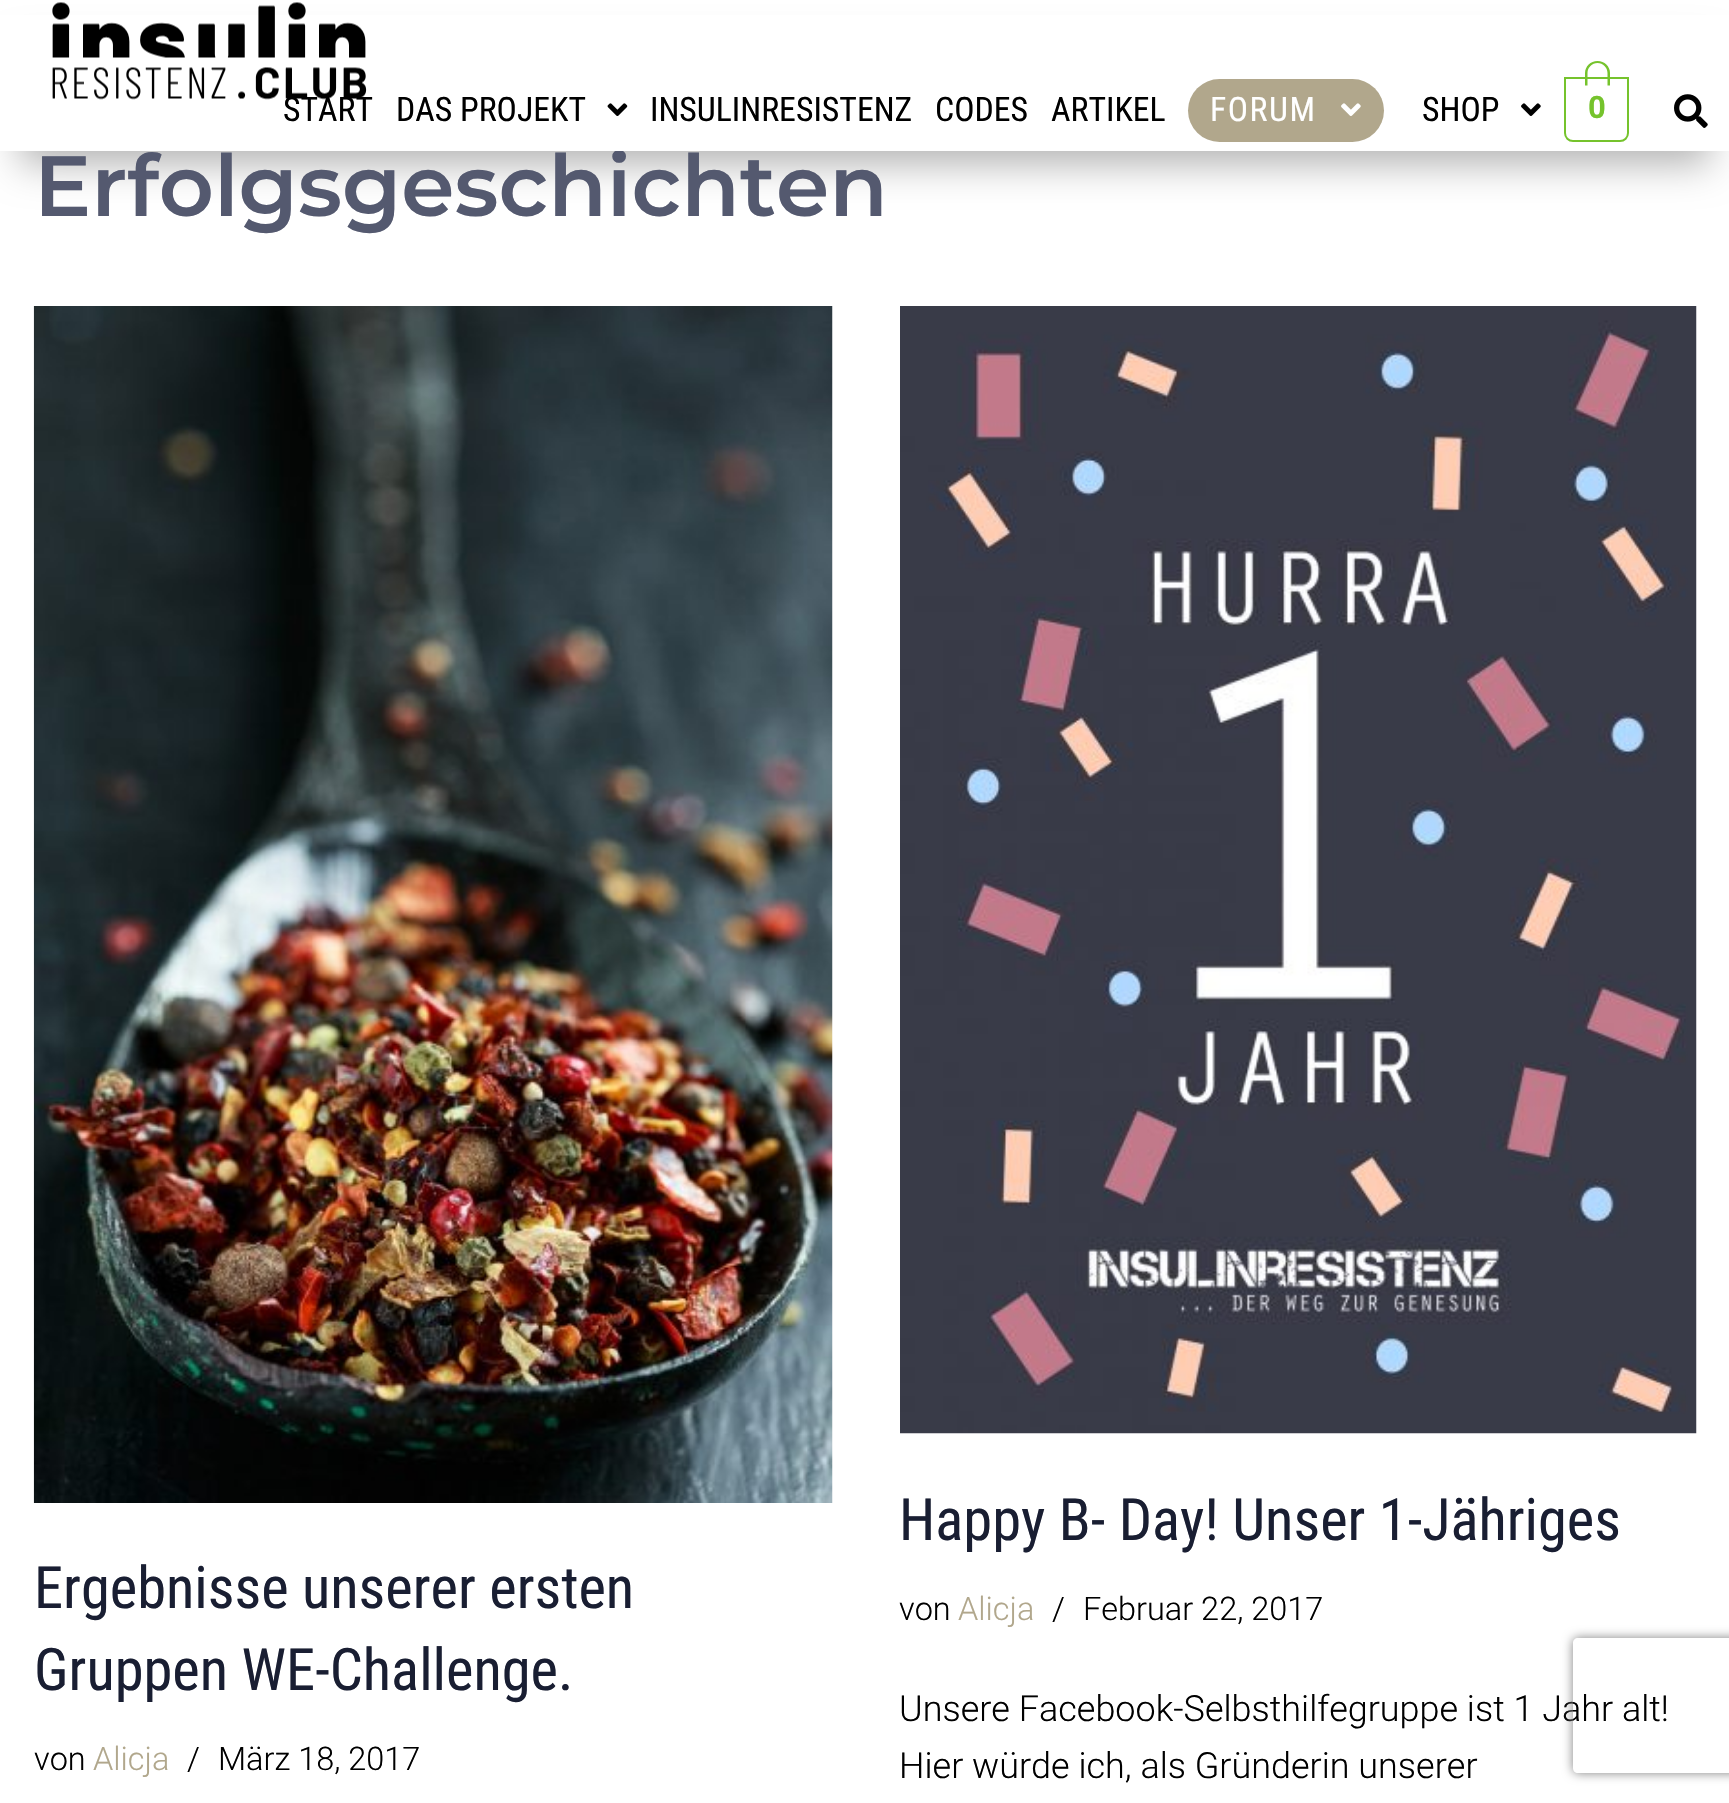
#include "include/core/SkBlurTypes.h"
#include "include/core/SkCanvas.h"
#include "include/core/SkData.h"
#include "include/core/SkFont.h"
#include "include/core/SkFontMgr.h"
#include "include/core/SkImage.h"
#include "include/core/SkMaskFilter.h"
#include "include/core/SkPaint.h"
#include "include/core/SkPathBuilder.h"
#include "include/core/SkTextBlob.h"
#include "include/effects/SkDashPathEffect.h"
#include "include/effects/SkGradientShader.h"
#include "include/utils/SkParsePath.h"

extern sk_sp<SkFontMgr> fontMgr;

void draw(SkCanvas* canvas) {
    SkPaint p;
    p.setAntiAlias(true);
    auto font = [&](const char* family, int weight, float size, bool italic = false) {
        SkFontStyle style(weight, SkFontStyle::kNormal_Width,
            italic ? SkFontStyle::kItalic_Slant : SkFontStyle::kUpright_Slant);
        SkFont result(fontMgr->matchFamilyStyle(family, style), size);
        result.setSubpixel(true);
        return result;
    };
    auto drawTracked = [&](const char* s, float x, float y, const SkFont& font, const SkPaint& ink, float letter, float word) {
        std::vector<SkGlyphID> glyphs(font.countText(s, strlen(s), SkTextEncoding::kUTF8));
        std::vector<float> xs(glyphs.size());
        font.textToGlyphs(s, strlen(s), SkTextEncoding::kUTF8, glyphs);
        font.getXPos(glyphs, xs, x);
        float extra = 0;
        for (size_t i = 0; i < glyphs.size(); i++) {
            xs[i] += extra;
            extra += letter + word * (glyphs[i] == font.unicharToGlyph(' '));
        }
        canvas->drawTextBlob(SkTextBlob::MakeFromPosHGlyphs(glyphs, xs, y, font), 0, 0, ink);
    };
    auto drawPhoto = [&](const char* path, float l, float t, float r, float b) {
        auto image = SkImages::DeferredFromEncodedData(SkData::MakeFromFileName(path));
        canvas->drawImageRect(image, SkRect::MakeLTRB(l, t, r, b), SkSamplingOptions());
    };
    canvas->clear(0xFFFFFFFF);
    p.setColor(0x4D000000);
    p.setMaskFilter(SkMaskFilter::MakeBlur(kNormal_SkBlurStyle, 19));
    canvas->drawRect(SkRect::MakeLTRB(20, 50, 1710, 164), p);
    p.setMaskFilter(nullptr);
    auto font1 = font("Montserrat", 100, 85.5f);
    p.setColor(0xFF54596F);
    canvas->drawString("Erfolgsgeschichten", 34, 216, font1, p);
    p.setColor(0xFFFFFFFF);
    canvas->drawRect(SkRect::MakeLTRB(0, 15, 1729, 151), p);
    drawPhoto("media/1.png", 52, 2, 367, 100);
    auto font2 = font("Roboto Condensed", 400, 33.75f);
    p.setColor(0xFF000000);
    canvas->drawString("START", 283, 121, font2, p);
    canvas->drawString("DAS PROJEKT", 396, 121, font2, p);
    drawPhoto("media/2.png", 607, 103, 628, 116);
    {
        const struct { const char* s; float x, y; } items[] = {
            {"INSULINRESISTENZ", 650, 121},
            {"CODES", 935, 121},
            {"ARTIKEL", 1051, 121},
        };
        for (auto [s, x, y] : items) {
            canvas->drawString(s, x, y, font2, p);
        }
    }
    p.setColor(0xFFB1A78C);
    canvas->drawRoundRect(SkRect::MakeLTRB(1188, 79, 1384, 142), 31.5f, 31.5f, p);
    p.setColor(0xFFFFFFFF);
    drawTracked("FORUM", 1210, 121, font2, p, 1.5f, 0);
    drawPhoto("media/3.png", 1341, 103, 1361, 116);
    p.setColor(0xFF000000);
    canvas->drawString("SHOP", 1422, 121, font2, p);
    drawPhoto("media/4.png", 1521, 103, 1541, 116);
    p.setStyle(SkPaint::kStroke_Style);
    p.setStrokeWidth(2);
    p.setColor(0xFF75C32C);
    canvas->drawPath(SkPathBuilder().moveTo(1565, 78).lineTo(1628, 78).lineTo(1628, 133).cubicTo(1628, 137.5f, 1624.5f, 141, 1620, 141).lineTo(1573, 141).cubicTo(1568.5f, 141, 1565, 137.5f, 1565, 133).close().detach(), p);
    p.setStyle(SkPaint::kFill_Style);
    canvas->drawPath(SkPathBuilder(SkPathFillType::kEvenOdd).moveTo(1597.5f, 61).cubicTo(1604.5f, 61, 1610, 66.5f, 1610, 73).lineTo(1610, 85.5f).lineTo(1585, 85.5f).lineTo(1585, 73).cubicTo(1585, 66.5f, 1590.5f, 61, 1597.5f, 61).close().moveTo(1597.5f, 63).cubicTo(1603, 63, 1607.5f, 67.5f, 1607.5f, 73).lineTo(1607.5f, 85.5f).lineTo(1587.5f, 85.5f).lineTo(1587.5f, 73).cubicTo(1587.5f, 67.5f, 1592, 63, 1597.5f, 63).close().detach(), p);
    auto font3 = font("Roboto", 700, 31);
    canvas->drawString("0", 1588, 118, font3, p);
    drawPhoto("media/5.png", 1674, 94, 1708, 128);
    drawPhoto("media/6.png", 33, 306, 833, 1503);
    auto font4 = font("Roboto Condensed", 400, 58.5f);
    p.setColor(0xFF191E32);
    canvas->drawString("Ergebnisse unserer ersten", 34, 1608, font4, p);
    canvas->drawString("Gruppen WE-Challenge.", 34, 1690, font4, p);
    auto font5 = font("Roboto", 300, 32.5f);
    p.setColor(0xFF000000);
    canvas->drawString("von", 34, 1770, font5, p);
    p.setColor(0xFFB1A78C);
    canvas->drawString("Alicja", 93, 1770, font5, p);
    p.setColor(0xFF000000);
    canvas->drawString("/", 187, 1770, font5, p);
    canvas->drawString("März 18, 2017", 218, 1770, font5, p);
    drawPhoto("media/7.png", 900, 306, 1697, 1434);
    p.setColor(0xFF191E32);
    canvas->drawString("Happy B- Day! Unser 1-Jähriges", 899, 1540, font4, p);
    p.setColor(0xFF000000);
    canvas->drawString("von", 899, 1620, font5, p);
    p.setColor(0xFFB1A78C);
    canvas->drawString("Alicja", 958, 1620, font5, p);
    p.setColor(0xFF000000);
    canvas->drawString("/", 1052, 1620, font5, p);
    canvas->drawString("Februar 22, 2017", 1083, 1620, font5, p);
    auto font6 = font("Roboto", 300, 36);
    canvas->drawString("Unsere Facebook-Selbsthilfegruppe ist 1 Jahr alt!", 899, 1721, font6, p);
    canvas->drawString("Hier würde ich, als Gründerin unserer", 899, 1778, font6, p);
    canvas->save();
    canvas->clipPath(SkPathBuilder(SkPathFillType::kEvenOdd).moveTo(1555, 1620).lineTo(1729, 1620).lineTo(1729, 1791).lineTo(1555, 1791).close().moveTo(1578, 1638).lineTo(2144, 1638).cubicTo(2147, 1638, 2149, 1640, 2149, 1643).lineTo(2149, 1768).cubicTo(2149, 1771, 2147, 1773, 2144, 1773).lineTo(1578, 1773).cubicTo(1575, 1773, 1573, 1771, 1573, 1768).lineTo(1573, 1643).cubicTo(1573, 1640, 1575, 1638, 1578, 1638).close().detach(), true);
    p.setColor(0xFF808080);
    p.setMaskFilter(SkMaskFilter::MakeBlur(kNormal_SkBlurStyle, 5.5f));
    canvas->drawRoundRect(SkRect::MakeLTRB(1573, 1638, 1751, 1773), 5, 5, p);
    p.setMaskFilter(nullptr);
    canvas->restore();
}
